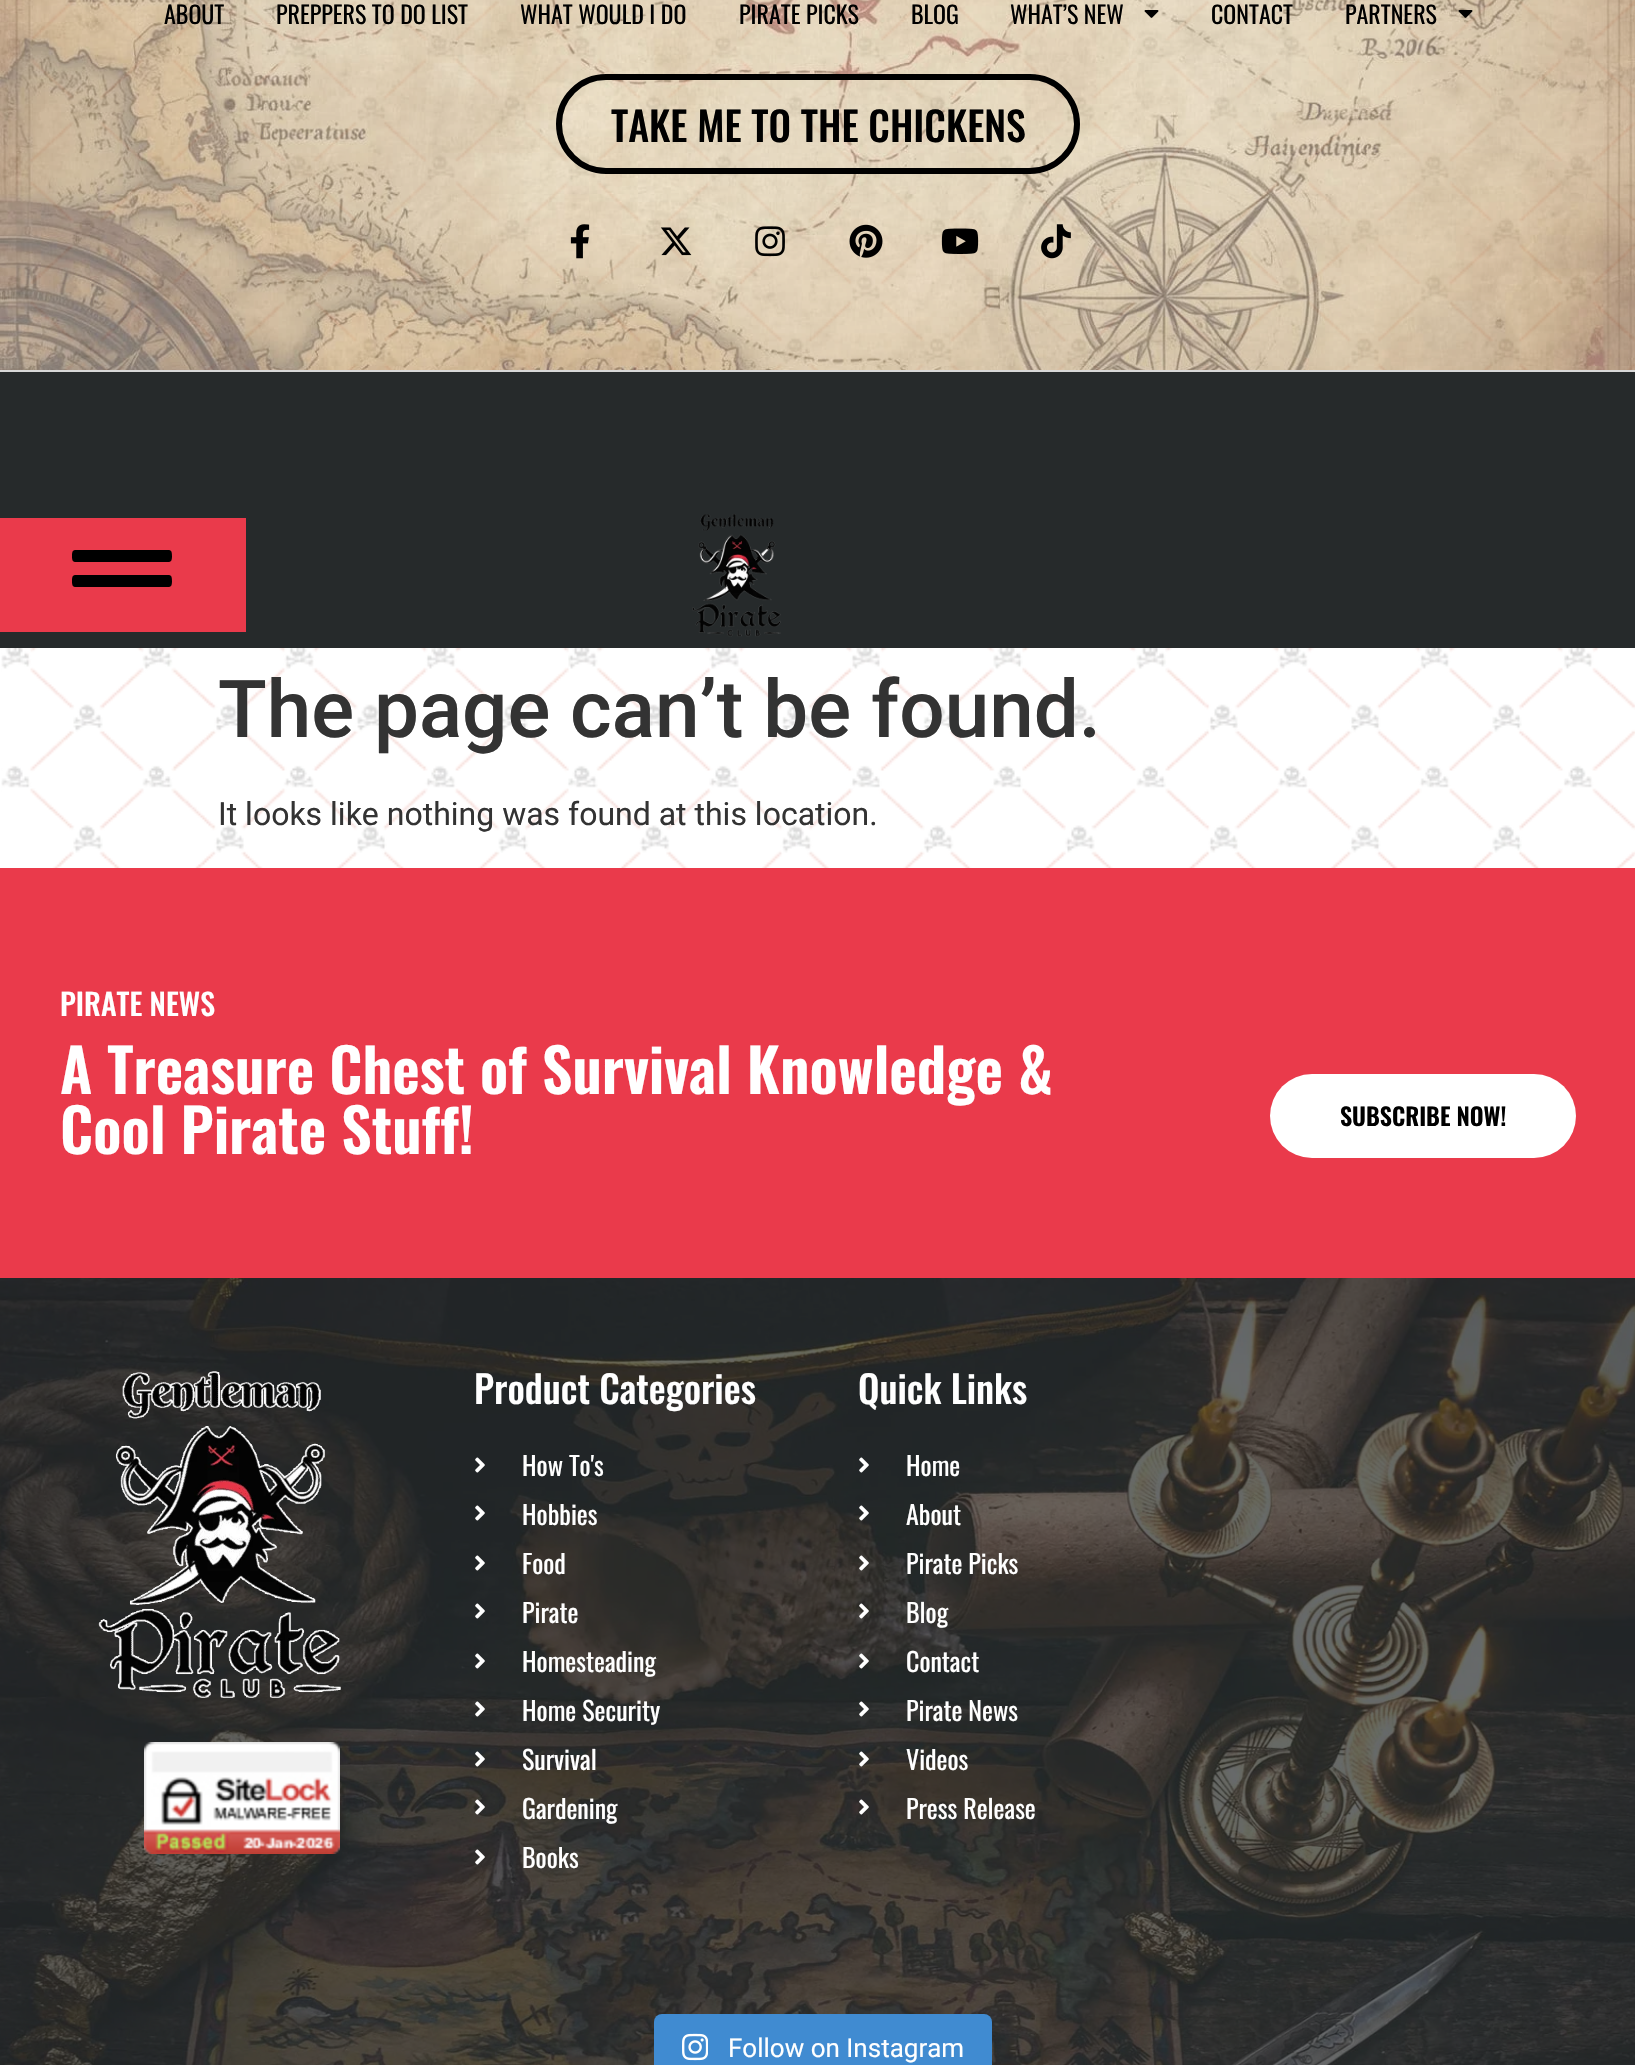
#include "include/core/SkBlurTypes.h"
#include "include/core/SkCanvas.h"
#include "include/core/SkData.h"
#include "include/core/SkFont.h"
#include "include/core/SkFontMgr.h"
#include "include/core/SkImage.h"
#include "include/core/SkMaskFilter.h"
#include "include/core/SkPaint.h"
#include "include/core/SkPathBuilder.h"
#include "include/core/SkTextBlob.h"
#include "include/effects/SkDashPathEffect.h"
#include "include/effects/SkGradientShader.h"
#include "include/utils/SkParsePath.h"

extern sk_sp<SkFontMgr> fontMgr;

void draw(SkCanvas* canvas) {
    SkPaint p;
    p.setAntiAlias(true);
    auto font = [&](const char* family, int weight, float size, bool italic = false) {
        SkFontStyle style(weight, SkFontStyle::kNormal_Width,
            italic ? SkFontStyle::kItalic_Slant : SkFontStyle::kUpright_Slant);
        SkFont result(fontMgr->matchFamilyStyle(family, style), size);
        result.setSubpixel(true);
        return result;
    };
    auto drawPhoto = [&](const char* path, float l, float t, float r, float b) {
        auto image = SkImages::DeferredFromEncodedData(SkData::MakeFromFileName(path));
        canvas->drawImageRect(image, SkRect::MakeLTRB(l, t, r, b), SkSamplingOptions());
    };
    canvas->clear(0xFFFFFFFF);
    drawPhoto("media/1.png", 1, 0, 1635, 868);
    p.setColor(0xFFD8D8D8);
    canvas->drawRect(SkRect::MakeLTRB(0, 370, 1635, 372), p);
    drawPhoto("media/2.png", 0, 0, 1635, 370);
    auto font1 = font("Oswald", 400, 24);
    p.setColor(0xFF000000);
    {
        const struct { const char* s; float x, y; } items[] = {
            {"ABOUT", 164, 24},
            {"PREPPERS TO DO LIST", 276, 24},
            {"WHAT WOULD I DO", 520, 24},
            {"PIRATE PICKS", 739, 24},
            {"BLOG", 911, 24},
            {"WHAT’S NEW", 1010, 24},
        };
        for (auto [s, x, y] : items) {
            canvas->drawString(s, x, y, font1, p);
        }
    }
    drawPhoto("media/3.png", 1144, 10, 1159, 18);
    canvas->drawString("CONTACT", 1211, 24, font1, p);
    canvas->drawString("PARTNERS", 1345, 24, font1, p);
    drawPhoto("media/4.png", 1458, 10, 1473, 18);
    p.setStyle(SkPaint::kStroke_Style);
    p.setStrokeWidth(6);
    canvas->drawRoundRect(SkRect::MakeLTRB(559, 77, 1077, 171), 47, 47, p);
    auto font2 = font("Oswald", 500, 40);
    p.setStyle(SkPaint::kFill_Style);
    canvas->drawString("TAKE ME TO THE CHICKENS", 611, 142, font2, p);
    drawPhoto("media/5.png", 570, 224, 590, 259);
    drawPhoto("media/6.png", 660, 227, 692, 256);
    drawPhoto("media/7.png", 755, 226, 785, 257);
    drawPhoto("media/8.png", 849, 224, 883, 258);
    drawPhoto("media/9.png", 941, 228, 979, 254);
    drawPhoto("media/10.png", 1041, 224, 1071, 259);
    p.setColor(0xFF262A2B);
    canvas->drawRect(SkRect::MakeLTRB(0, 372, 1635, 648), p);
    p.setColor(0xFFEA3A4B);
    canvas->drawRect(SkRect::MakeLTRB(0, 518, 246, 632), p);
    p.setColor(0xFF000000);
    canvas->drawPath(SkPathBuilder().moveTo(169, 575).cubicTo(172, 575, 172, 579, 172, 581).cubicTo(172, 583, 172, 587, 169, 587).lineTo(75, 587).cubicTo(72, 587, 72, 583, 72, 581).cubicTo(72, 579, 72, 575, 75, 575).close().moveTo(169, 550).cubicTo(172, 550, 172, 554, 172, 556).cubicTo(172, 558, 172, 562, 169, 562).lineTo(75, 562).cubicTo(72, 562, 72, 558, 72, 556).cubicTo(72, 554, 72, 550, 75, 550).close().detach(), p);
    drawPhoto("media/11.png", 692, 514, 781, 637);
    auto font3 = font("Roboto", 500, 80);
    p.setColor(0xFF333333);
    canvas->drawString("The page can’t be found.", 218, 737, font3, p);
    auto font4 = font("Roboto", 400, 32);
    canvas->drawString("It looks like nothing was found at this location.", 218, 825, font4, p);
    p.setColor(0xFFEA3A4B);
    canvas->drawRect(SkRect::MakeLTRB(0, 868, 1635, 1278), p);
    auto font5 = font("Oswald", 500, 30);
    p.setColor(0xFFFFFFFF);
    canvas->drawString("PIRATE NEWS", 60, 1016, font5, p);
    auto font6 = font("Oswald", 600, 60);
    canvas->drawString("A Treasure Chest of Survival Knowledge &", 60, 1094, font6, p);
    canvas->drawString("Cool Pirate Stuff!", 60, 1154, font6, p);
    canvas->drawRoundRect(SkRect::MakeLTRB(1270, 1074, 1576, 1158), 42, 42, p);
    auto font7 = font("Oswald", 600, 24);
    p.setColor(0xFF000000);
    canvas->drawString("SUBSCRIBE NOW!", 1340, 1126, font7, p);
    drawPhoto("media/12.png", 0, 1278, 1635, 2065);
    drawPhoto("media/13.png", 98, 1371, 341, 1698);
    drawPhoto("media/14.png", 144, 1742, 340, 1854);
    auto font8 = font("Oswald", 500, 38);
    p.setColor(0xFFFFFFFF);
    canvas->drawString("Product Categories", 474, 1404, font8, p);
    drawPhoto("media/15.png", 475, 1457, 485, 1473);
    auto font9 = font("Oswald", 400, 26);
    canvas->drawString("How To's", 522, 1476, font9, p);
    drawPhoto("media/16.png", 475, 1505, 485, 1521);
    canvas->drawString("Hobbies", 522, 1525, font9, p);
    drawPhoto("media/17.png", 475, 1555, 485, 1571);
    canvas->drawString("Food", 522, 1574, font9, p);
    drawPhoto("media/18.png", 475, 1603, 485, 1619);
    canvas->drawString("Pirate", 522, 1623, font9, p);
    drawPhoto("media/19.png", 475, 1653, 485, 1669);
    canvas->drawString("Homesteading", 522, 1672, font9, p);
    drawPhoto("media/20.png", 475, 1701, 485, 1717);
    canvas->drawString("Home Security", 522, 1721, font9, p);
    drawPhoto("media/21.png", 475, 1751, 485, 1767);
    canvas->drawString("Survival", 522, 1770, font9, p);
    drawPhoto("media/22.png", 475, 1799, 485, 1815);
    canvas->drawString("Gardening", 522, 1819, font9, p);
    drawPhoto("media/23.png", 475, 1849, 485, 1865);
    canvas->drawString("Books", 522, 1868, font9, p);
    canvas->drawString("Quick Links", 858, 1404, font8, p);
    drawPhoto("media/24.png", 859, 1457, 869, 1473);
    canvas->drawString("Home", 906, 1476, font9, p);
    drawPhoto("media/25.png", 859, 1505, 869, 1521);
    canvas->drawString("About", 906, 1525, font9, p);
    drawPhoto("media/26.png", 859, 1555, 869, 1571);
    canvas->drawString("Pirate Picks", 906, 1574, font9, p);
    drawPhoto("media/27.png", 859, 1603, 869, 1619);
    canvas->drawString("Blog", 906, 1623, font9, p);
    drawPhoto("media/28.png", 859, 1653, 869, 1669);
    canvas->drawString("Contact", 906, 1672, font9, p);
    drawPhoto("media/29.png", 859, 1701, 869, 1717);
    canvas->drawString("Pirate News", 906, 1721, font9, p);
    drawPhoto("media/30.png", 859, 1751, 869, 1767);
    canvas->drawString("Videos", 906, 1770, font9, p);
    drawPhoto("media/31.png", 859, 1799, 869, 1815);
    canvas->drawString("Press Release", 906, 1819, font9, p);
    p.setColor(0xFF408BD1);
    canvas->drawRoundRect(SkRect::MakeLTRB(654, 2014, 992, 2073), 8, 8, p);
    drawPhoto("media/32.png", 682, 2033, 708, 2061);
    auto font10 = font("Roboto", 400, 26);
    p.setColor(0xFFFFFFFF);
    canvas->drawString("Follow on Instagram", 728, 2057, font10, p);
}
